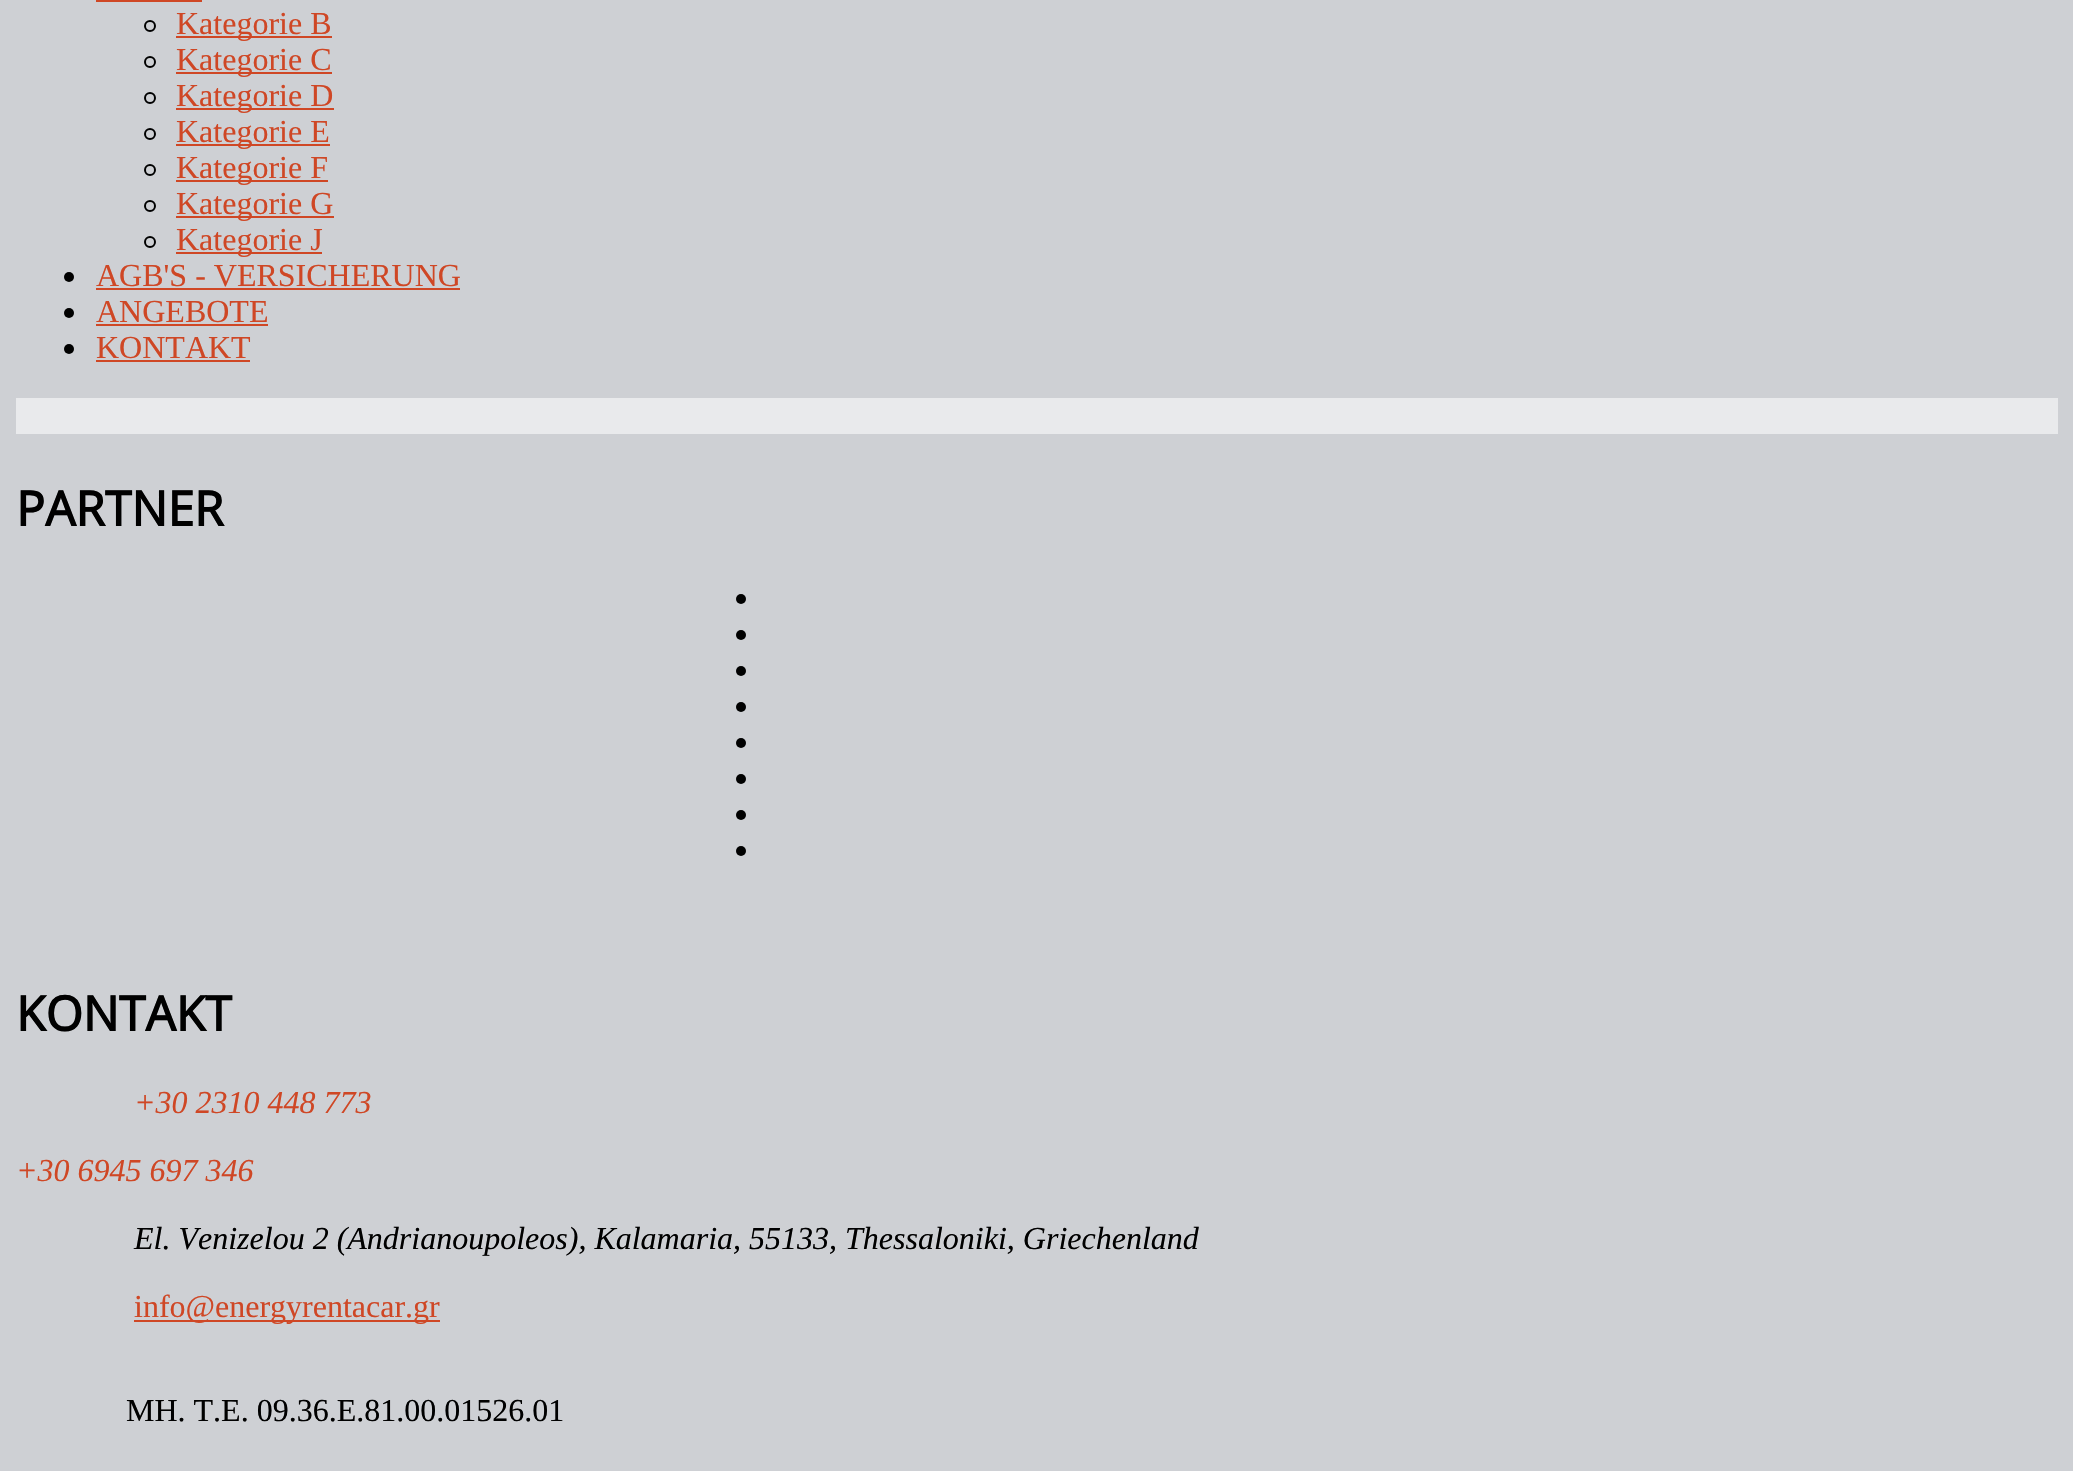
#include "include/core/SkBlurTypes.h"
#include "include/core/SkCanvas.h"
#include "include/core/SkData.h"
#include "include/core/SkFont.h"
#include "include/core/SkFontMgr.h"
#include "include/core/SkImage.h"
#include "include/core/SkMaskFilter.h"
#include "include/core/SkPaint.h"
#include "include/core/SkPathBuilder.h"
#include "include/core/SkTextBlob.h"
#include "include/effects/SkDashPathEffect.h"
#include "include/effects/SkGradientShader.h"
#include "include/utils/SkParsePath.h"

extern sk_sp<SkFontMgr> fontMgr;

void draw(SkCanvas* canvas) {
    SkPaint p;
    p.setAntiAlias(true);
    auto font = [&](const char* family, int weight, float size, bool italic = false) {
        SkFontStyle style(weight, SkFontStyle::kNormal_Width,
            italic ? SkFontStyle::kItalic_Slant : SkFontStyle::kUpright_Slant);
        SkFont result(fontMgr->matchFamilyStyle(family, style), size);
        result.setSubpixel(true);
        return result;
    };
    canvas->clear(0xFFCED0D4);
    p.setColor(0xFFCF4725);
    canvas->drawRect(SkRect::MakeLTRB(96, 0, 202, 2), p);
    p.setStyle(SkPaint::kStroke_Style);
    p.setStrokeWidth(2);
    p.setColor(0xFF000000);
    canvas->drawCircle(150, 26, 5, p);
    p.setStyle(SkPaint::kFill_Style);
    p.setColor(0xFFCF4725);
    canvas->drawRect(SkRect::MakeLTRB(176, 36, 332, 38), p);
    auto font1 = font("Liberation Serif", 400, 32);
    canvas->drawString("Kategorie B", 176, 34, font1, p);
    p.setStyle(SkPaint::kStroke_Style);
    p.setColor(0xFF000000);
    canvas->drawCircle(150, 62, 5, p);
    p.setStyle(SkPaint::kFill_Style);
    p.setColor(0xFFCF4725);
    canvas->drawRect(SkRect::MakeLTRB(176, 72, 332, 74), p);
    canvas->drawString("Kategorie C", 176, 70, font1, p);
    p.setStyle(SkPaint::kStroke_Style);
    p.setColor(0xFF000000);
    canvas->drawCircle(150, 98, 5, p);
    p.setStyle(SkPaint::kFill_Style);
    p.setColor(0xFFCF4725);
    canvas->drawRect(SkRect::MakeLTRB(176, 108, 334, 110), p);
    canvas->drawString("Kategorie D", 176, 106, font1, p);
    p.setStyle(SkPaint::kStroke_Style);
    p.setColor(0xFF000000);
    canvas->drawCircle(150, 134, 5, p);
    p.setStyle(SkPaint::kFill_Style);
    p.setColor(0xFFCF4725);
    canvas->drawRect(SkRect::MakeLTRB(176, 144, 330, 146), p);
    canvas->drawString("Kategorie E", 176, 142, font1, p);
    p.setStyle(SkPaint::kStroke_Style);
    p.setColor(0xFF000000);
    canvas->drawCircle(150, 170, 5, p);
    p.setStyle(SkPaint::kFill_Style);
    p.setColor(0xFFCF4725);
    canvas->drawRect(SkRect::MakeLTRB(176, 180, 328, 182), p);
    canvas->drawString("Kategorie F", 176, 178, font1, p);
    p.setStyle(SkPaint::kStroke_Style);
    p.setColor(0xFF000000);
    canvas->drawCircle(150, 206, 5, p);
    p.setStyle(SkPaint::kFill_Style);
    p.setColor(0xFFCF4725);
    canvas->drawRect(SkRect::MakeLTRB(176, 216, 334, 218), p);
    canvas->drawString("Kategorie G", 176, 214, font1, p);
    p.setStyle(SkPaint::kStroke_Style);
    p.setColor(0xFF000000);
    canvas->drawCircle(150, 242, 5, p);
    p.setStyle(SkPaint::kFill_Style);
    p.setColor(0xFFCF4725);
    canvas->drawRect(SkRect::MakeLTRB(176, 252, 322, 254), p);
    canvas->drawString("Kategorie J", 176, 250, font1, p);
    p.setColor(0xFF000000);
    canvas->drawCircle(69, 277, 5, p);
    p.setColor(0xFFCF4725);
    canvas->drawString("AGB'S - VERSICHERUNG", 96, 286, font1, p);
    canvas->drawRect(SkRect::MakeLTRB(96, 288, 460, 290), p);
    p.setColor(0xFF000000);
    canvas->drawCircle(69, 313, 5, p);
    p.setColor(0xFFCF4725);
    canvas->drawString("ANGEBOTE", 96, 322, font1, p);
    canvas->drawRect(SkRect::MakeLTRB(96, 324, 268, 326), p);
    p.setColor(0xFF000000);
    canvas->drawCircle(69, 349, 5, p);
    p.setColor(0xFFCF4725);
    canvas->drawString("KONTAKT", 96, 358, font1, p);
    canvas->drawRect(SkRect::MakeLTRB(96, 360, 250, 362), p);
    p.setColor(0xFFE9EAEC);
    canvas->drawRect(SkRect::MakeLTRB(16, 398, 2058, 434), p);
    auto font2 = font("Open Sans", 700, 48);
    p.setColor(0xFF000000);
    canvas->drawString("PARTNER", 16, 526, font2, p);
    canvas->drawCircle(741, 599, 5, p);
    canvas->drawCircle(741, 635, 5, p);
    canvas->drawCircle(741, 671, 5, p);
    canvas->drawCircle(741, 707, 5, p);
    canvas->drawCircle(741, 743, 5, p);
    canvas->drawCircle(741, 779, 5, p);
    canvas->drawCircle(741, 815, 5, p);
    canvas->drawCircle(741, 851, 5, p);
    canvas->drawString("KONTAKT", 16, 1031, font2, p);
    auto font3 = font("Liberation Serif", 400, 32, true);
    p.setColor(0xFFCF4725);
    canvas->drawString("+30 2310 448 773", 134, 1113, font3, p);
    canvas->drawString("+30 6945 697 346", 16, 1181, font3, p);
    p.setColor(0xFF000000);
    canvas->drawString("El. Venizelou 2 (Andrianoupoleos), Kalamaria, 55133, Thessaloniki, Griechenland", 134, 1249, font3, p);
    p.setColor(0xFFCF4725);
    canvas->drawRect(SkRect::MakeLTRB(134, 1320, 440, 1322), p);
    canvas->drawString("info@energyrentacar.gr", 134, 1317, font1, p);
    p.setColor(0xFF000000);
    canvas->drawString("MH. T.E. 09.36.E.81.00.01526.01", 126, 1421, font1, p);
}
